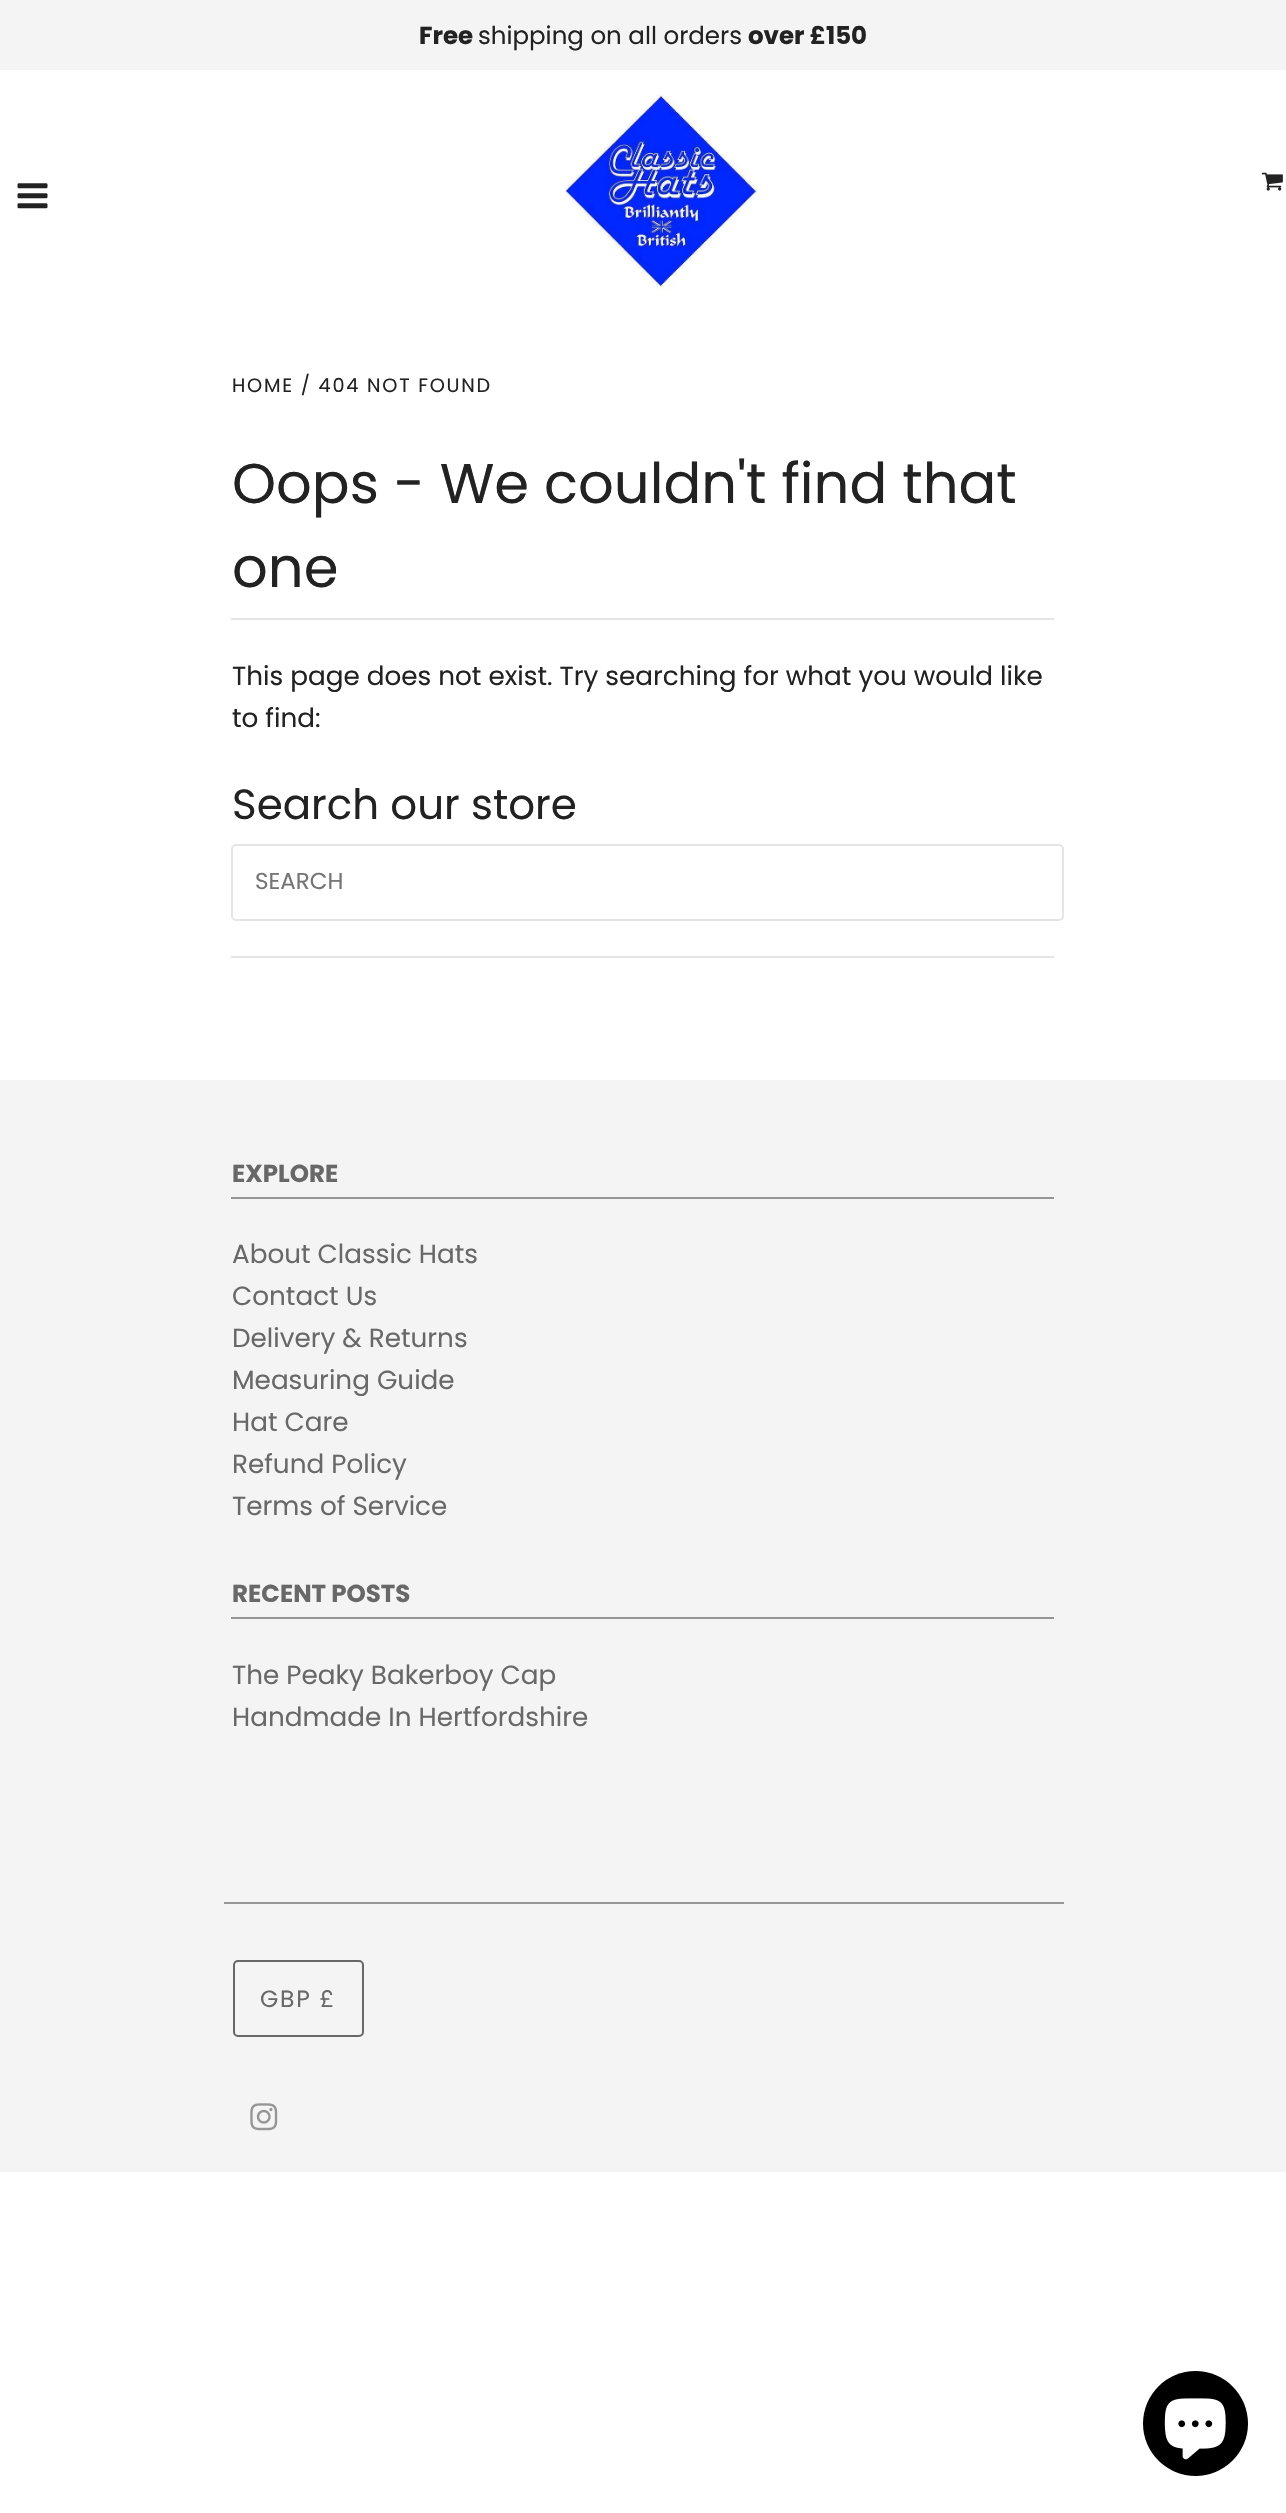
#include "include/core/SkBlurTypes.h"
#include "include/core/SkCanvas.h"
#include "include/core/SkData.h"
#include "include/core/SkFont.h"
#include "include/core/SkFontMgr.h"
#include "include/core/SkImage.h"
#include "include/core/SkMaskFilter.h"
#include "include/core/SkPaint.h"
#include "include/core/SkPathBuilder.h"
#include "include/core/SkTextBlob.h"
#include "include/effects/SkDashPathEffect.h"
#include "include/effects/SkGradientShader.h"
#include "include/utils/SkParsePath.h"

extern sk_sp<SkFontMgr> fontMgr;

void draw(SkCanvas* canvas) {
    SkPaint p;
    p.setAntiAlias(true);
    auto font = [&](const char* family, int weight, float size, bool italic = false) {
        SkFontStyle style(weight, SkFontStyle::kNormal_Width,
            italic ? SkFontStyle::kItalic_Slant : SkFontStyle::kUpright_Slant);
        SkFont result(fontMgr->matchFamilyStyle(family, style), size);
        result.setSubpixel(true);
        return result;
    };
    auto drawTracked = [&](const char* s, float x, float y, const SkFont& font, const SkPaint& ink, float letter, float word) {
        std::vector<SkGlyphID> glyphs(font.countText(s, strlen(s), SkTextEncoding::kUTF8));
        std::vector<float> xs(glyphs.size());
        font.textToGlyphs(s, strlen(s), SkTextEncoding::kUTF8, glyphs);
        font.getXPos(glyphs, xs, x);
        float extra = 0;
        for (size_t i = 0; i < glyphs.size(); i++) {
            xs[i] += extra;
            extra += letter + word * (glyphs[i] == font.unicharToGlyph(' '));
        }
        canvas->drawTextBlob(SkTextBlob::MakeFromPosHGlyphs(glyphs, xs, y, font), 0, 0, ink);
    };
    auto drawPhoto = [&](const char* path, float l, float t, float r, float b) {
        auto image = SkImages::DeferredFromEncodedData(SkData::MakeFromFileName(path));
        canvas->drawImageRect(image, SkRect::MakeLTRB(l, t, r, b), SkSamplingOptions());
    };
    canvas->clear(0xFFFFFFFF);
    p.setColor(0xFFF4F4F4);
    canvas->drawRect(SkRect::MakeLTRB(0, 0, 1286, 70), p);
    auto font1 = font("Poppins", 700, 24.5f);
    p.setColor(0xFF222222);
    canvas->drawString("Free", 419, 44, font1, p);
    auto font2 = font("Poppins", 400, 24.5f);
    canvas->drawString("shipping on all orders", 478, 44, font2, p);
    canvas->drawString("over £150", 748, 44, font1, p);
    drawPhoto("media/1.png", 17, 183, 48, 209);
    drawPhoto("media/2.png", 565, 94, 762, 291);
    drawPhoto("media/3.png", 1261, 172, 1283, 191);
    auto font3 = font("Poppins", 400, 19.25f);
    drawTracked("HOME / 404 NOT FOUND", 232, 392, font3, p, 1.75f, 0);
    p.setColor(0xFFE5E5E5);
    canvas->drawRect(SkRect::MakeLTRB(231, 618, 1054, 620), p);
    auto font4 = font("Poppins", 400, 56);
    p.setColor(0xFF222222);
    canvas->drawString("Oops - We couldn't find that", 232, 503, font4, p);
    canvas->drawString("one", 232, 587, font4, p);
    auto font5 = font("Poppins", 400, 26.25f);
    canvas->drawString("This page does not exist. Try searching for what you would like", 232, 685, font5, p);
    canvas->drawString("to find:", 232, 727, font5, p);
    p.setColor(0xFFE5E5E5);
    canvas->drawRect(SkRect::MakeLTRB(231, 956, 1054, 958), p);
    auto font6 = font("Poppins", 400, 42);
    p.setColor(0xFF222222);
    canvas->drawString("Search our store", 232, 819, font6, p);
    p.setStyle(SkPaint::kStroke_Style);
    p.setStrokeWidth(2);
    p.setColor(0xFFE5E5E5);
    canvas->drawRoundRect(SkRect::MakeLTRB(232, 845, 1063, 920), 4, 4, p);
    auto font7 = font("Poppins", 400, 23);
    p.setStyle(SkPaint::kFill_Style);
    p.setColor(0xFF757575);
    canvas->drawString("SEARCH", 255, 889, font7, p);
    p.setColor(0xFFF4F4F4);
    canvas->drawRect(SkRect::MakeLTRB(0, 1080, 1286, 2172), p);
    p.setColor(0xFF969696);
    canvas->drawRect(SkRect::MakeLTRB(231, 1197, 1054, 1199), p);
    p.setColor(0xFF686868);
    canvas->drawString("EXPLORE", 232, 1182, font1, p);
    {
        const struct { const char* s; float x, y; } items[] = {
            {"About Classic Hats", 232, 1263},
            {"Contact Us", 232, 1305},
            {"Delivery & Returns", 232, 1347},
            {"Measuring Guide", 232, 1389},
            {"Hat Care", 232, 1431},
            {"Refund Policy", 232, 1473},
            {"Terms of Service", 232, 1515},
        };
        for (auto [s, x, y] : items) {
            canvas->drawString(s, x, y, font5, p);
        }
    }
    p.setColor(0xFF969696);
    canvas->drawRect(SkRect::MakeLTRB(231, 1617, 1054, 1619), p);
    p.setColor(0xFF686868);
    canvas->drawString("RECENT POSTS", 232, 1602, font1, p);
    canvas->drawString("The Peaky Bakerboy Cap", 232, 1684, font5, p);
    canvas->drawString("Handmade In Hertfordshire", 232, 1726, font5, p);
    p.setColor(0xFF969696);
    canvas->drawRect(SkRect::MakeLTRB(224, 1902, 1064, 1904), p);
    p.setStyle(SkPaint::kStroke_Style);
    p.setColor(0xFF686868);
    canvas->drawRoundRect(SkRect::MakeLTRB(234, 1961, 363, 2036), 4, 4, p);
    auto font8 = font("Poppins", 400, 23.5f);
    p.setStyle(SkPaint::kFill_Style);
    drawTracked("GBP £", 260, 2007, font8, p, 1.75f, 0);
    drawPhoto("media/4.png", 250, 2103, 278, 2131);
    p.setColor(0xFF000000);
    canvas->drawCircle(1195.5f, 2423.5f, 52.5f, p);
    drawPhoto("media/5.png", 1164, 2398, 1226, 2460);
}
